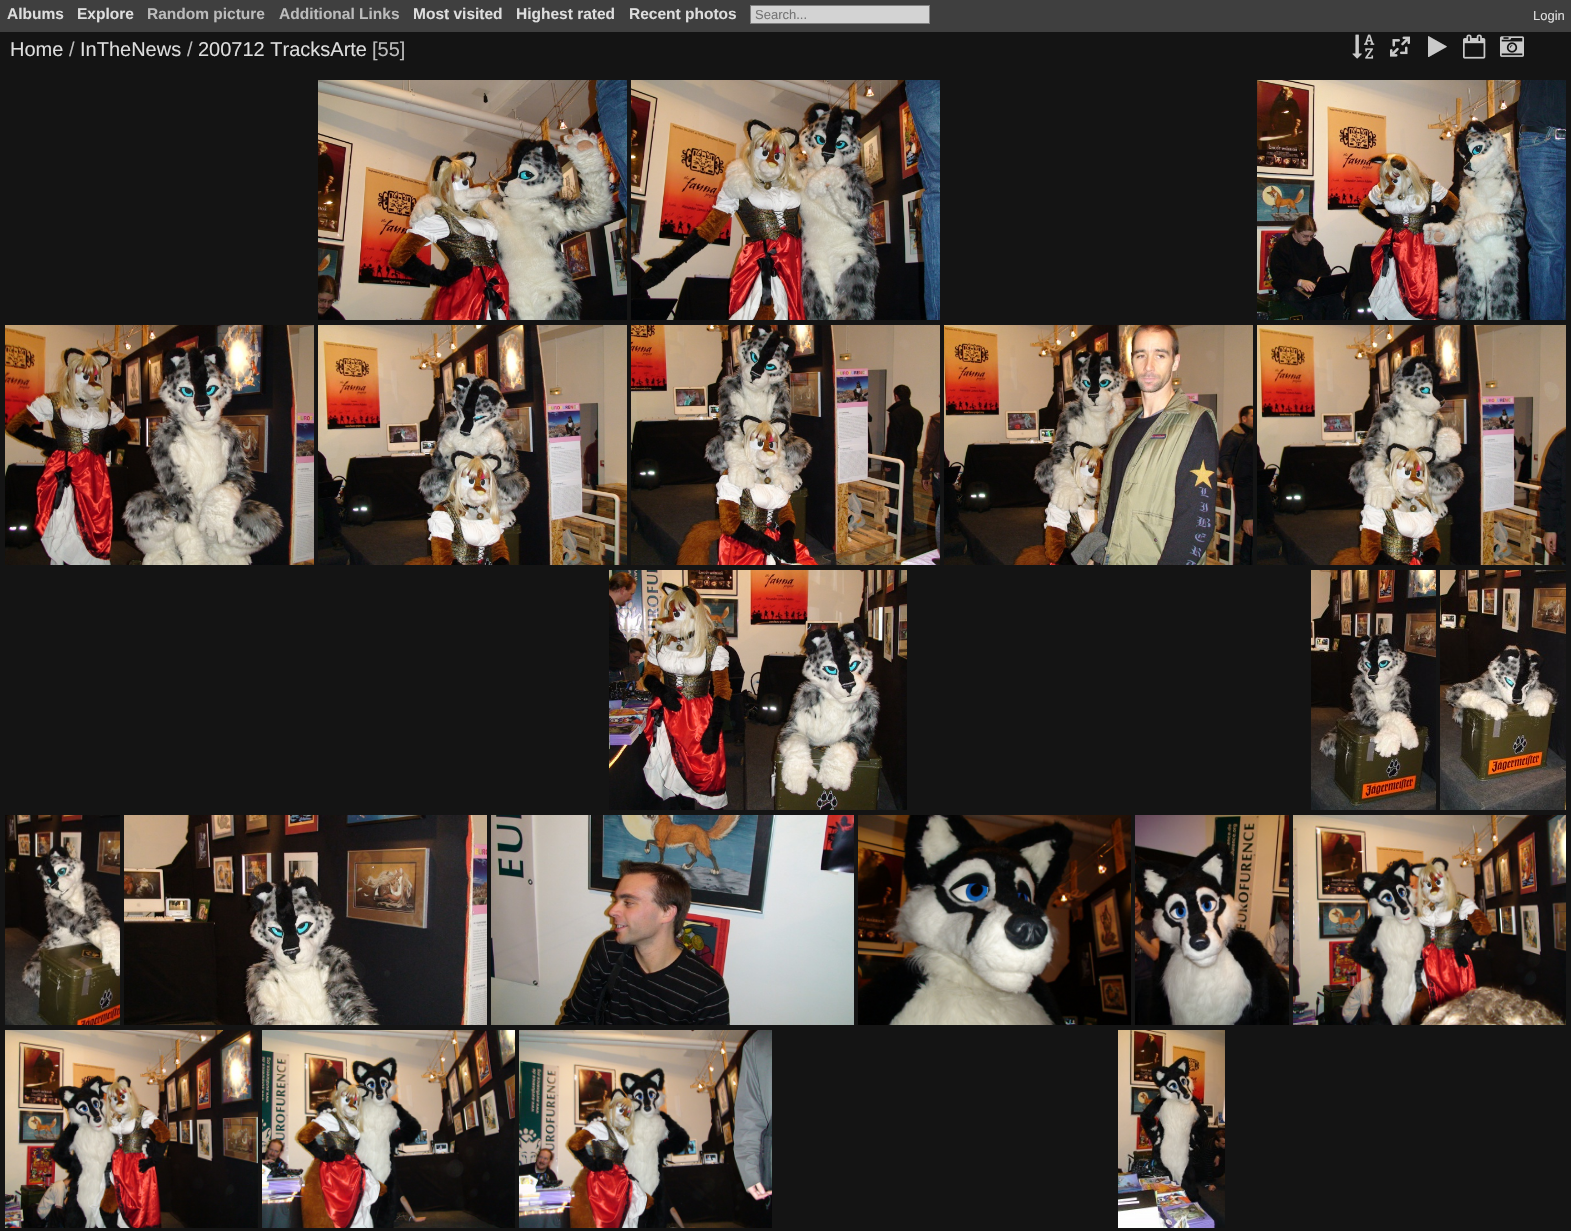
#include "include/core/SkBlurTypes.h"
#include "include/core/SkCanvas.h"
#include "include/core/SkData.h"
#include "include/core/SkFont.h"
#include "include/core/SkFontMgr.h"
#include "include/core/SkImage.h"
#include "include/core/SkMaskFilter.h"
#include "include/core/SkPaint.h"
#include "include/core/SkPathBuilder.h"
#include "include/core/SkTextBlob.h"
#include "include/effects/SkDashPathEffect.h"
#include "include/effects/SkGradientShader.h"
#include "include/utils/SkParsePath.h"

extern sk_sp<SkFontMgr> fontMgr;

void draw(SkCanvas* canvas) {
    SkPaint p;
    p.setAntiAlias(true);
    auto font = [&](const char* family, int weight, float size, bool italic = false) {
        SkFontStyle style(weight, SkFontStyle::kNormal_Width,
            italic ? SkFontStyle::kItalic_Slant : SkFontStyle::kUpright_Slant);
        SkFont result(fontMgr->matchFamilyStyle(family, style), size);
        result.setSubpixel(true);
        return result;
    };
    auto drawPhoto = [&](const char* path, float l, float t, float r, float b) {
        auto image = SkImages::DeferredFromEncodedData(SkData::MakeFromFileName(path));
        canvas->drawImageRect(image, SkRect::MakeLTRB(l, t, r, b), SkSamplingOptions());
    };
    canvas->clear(0xFF141414);
    p.setColor(0xFF3F3F3F);
    canvas->drawRect(SkRect::MakeLTRB(0, 0, 1571, 32), p);
    auto font1 = font("Liberation Sans", 700, 15.5f);
    p.setColor(0xFFDDDDDD);
    canvas->drawString("Albums", 7, 19, font1, p);
    canvas->drawString("Explore", 77, 19, font1, p);
    p.setColor(0xFFBBBBBB);
    canvas->drawString("Random picture", 147, 19, font1, p);
    canvas->drawString("Additional Links", 279, 19, font1, p);
    p.setColor(0xFFDDDDDD);
    {
        const struct { const char* s; float x, y; } items[] = {
            {"Most visited", 413, 19},
            {"Highest rated", 516, 19},
            {"Recent photos", 629, 19},
        };
        for (auto [s, x, y] : items) {
            canvas->drawString(s, x, y, font1, p);
        }
    }
    p.setColor(0xFFD3D3D3);
    canvas->drawRect(SkRect::MakeLTRB(750.5f, 5.5f, 929.5f, 23.5f), p);
    p.setStyle(SkPaint::kStroke_Style);
    p.setStrokeWidth(1);
    p.setColor(0xFF808080);
    canvas->drawRect(SkRect::MakeLTRB(750.5f, 5.5f, 929.5f, 23.5f), p);
    auto font2 = font("Liberation Sans", 400, 13);
    p.setStyle(SkPaint::kFill_Style);
    p.setColor(0xFF757575);
    canvas->drawString("Search...", 755, 19, font2, p);
    p.setColor(0xFFDDDDDD);
    canvas->drawString("Login", 1533, 20, font2, p);
    auto font3 = font("Liberation Sans", 400, 20);
    canvas->drawString("Home", 10, 56, font3, p);
    p.setColor(0xFFBBBBBB);
    canvas->drawString("/", 69, 56, font3, p);
    p.setColor(0xFFDDDDDD);
    canvas->drawString("InTheNews", 80, 56, font3, p);
    p.setColor(0xFFBBBBBB);
    canvas->drawString("/", 187, 56, font3, p);
    p.setColor(0xFFDDDDDD);
    canvas->drawString("200712 TracksArte", 198, 56, font3, p);
    p.setColor(0xFFBBBBBB);
    canvas->drawString("[55]", 372, 56, font3, p);
    drawPhoto("media/1.png", 1352, 34, 1375, 59);
    drawPhoto("media/2.png", 1390, 36, 1410, 57);
    auto font4 = font("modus", 400, 24);
    p.setColor(0xFFC9C9C9);
    canvas->drawString("▶", 1428, 55, font4, p);
    drawPhoto("media/3.png", 1463, 34, 1486, 59);
    drawPhoto("media/4.png", 1500, 36, 1524, 57);
    drawPhoto("media/5.png", 318, 80, 627, 320);
    drawPhoto("media/6.png", 631, 80, 940, 320);
    drawPhoto("media/7.png", 1257, 80, 1566, 320);
    drawPhoto("media/8.png", 5, 325, 314, 565);
    drawPhoto("media/9.png", 318, 325, 627, 565);
    drawPhoto("media/10.png", 631, 325, 940, 565);
    drawPhoto("media/11.png", 944, 325, 1253, 565);
    drawPhoto("media/12.png", 1257, 325, 1566, 565);
    drawPhoto("media/13.png", 609, 570, 907, 810);
    drawPhoto("media/14.png", 1311, 570, 1436, 810);
    drawPhoto("media/15.png", 1440, 570, 1566, 810);
    drawPhoto("media/16.png", 5, 815, 120, 1025);
    drawPhoto("media/17.png", 124, 815, 487, 1025);
    drawPhoto("media/18.png", 491, 815, 854, 1025);
    drawPhoto("media/19.png", 858, 815, 1131, 1025);
    drawPhoto("media/20.png", 1135, 815, 1289, 1025);
    drawPhoto("media/21.png", 1293, 815, 1566, 1025);
    drawPhoto("media/22.png", 5, 1030, 258, 1228);
    drawPhoto("media/23.png", 262, 1030, 515, 1228);
    drawPhoto("media/24.png", 519, 1030, 772, 1228);
    drawPhoto("media/25.png", 1118, 1030, 1225, 1228);
}
